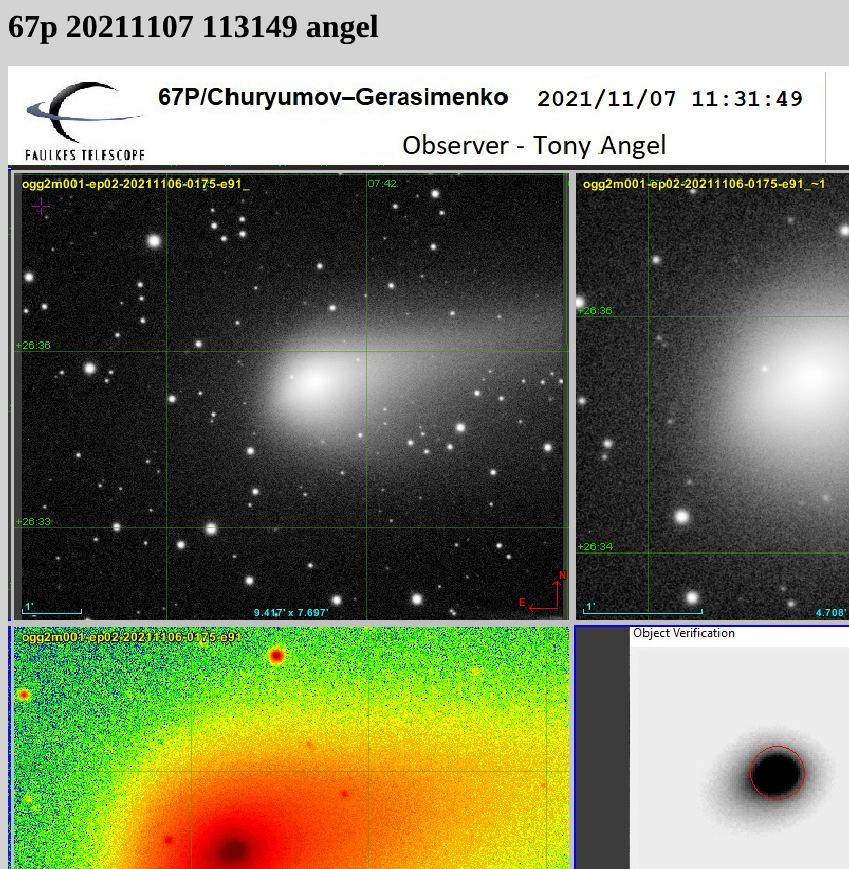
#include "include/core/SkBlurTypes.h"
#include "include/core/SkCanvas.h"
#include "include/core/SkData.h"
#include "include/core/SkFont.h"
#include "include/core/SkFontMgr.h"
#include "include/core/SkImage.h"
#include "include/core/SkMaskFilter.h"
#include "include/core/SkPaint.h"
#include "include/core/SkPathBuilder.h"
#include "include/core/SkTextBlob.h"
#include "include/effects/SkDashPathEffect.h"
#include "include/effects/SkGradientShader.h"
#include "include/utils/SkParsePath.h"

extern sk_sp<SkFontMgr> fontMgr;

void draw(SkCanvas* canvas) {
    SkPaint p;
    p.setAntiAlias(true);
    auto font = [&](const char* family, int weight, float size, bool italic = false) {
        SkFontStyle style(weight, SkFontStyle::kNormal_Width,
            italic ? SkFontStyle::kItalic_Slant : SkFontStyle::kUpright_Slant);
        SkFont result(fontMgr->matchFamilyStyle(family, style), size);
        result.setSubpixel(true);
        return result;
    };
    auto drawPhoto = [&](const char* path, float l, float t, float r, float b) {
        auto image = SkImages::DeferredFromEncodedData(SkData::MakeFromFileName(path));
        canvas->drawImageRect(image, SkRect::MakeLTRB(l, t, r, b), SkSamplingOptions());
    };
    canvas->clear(0xFFD3D3D3);
    auto font1 = font("Liberation Serif", 700, 32);
    p.setColor(0xFF000000);
    canvas->drawString("67p 20211107 113149 angel", 8, 37, font1, p);
    drawPhoto("media/1.png", 8, 66, 849, 869);
}
